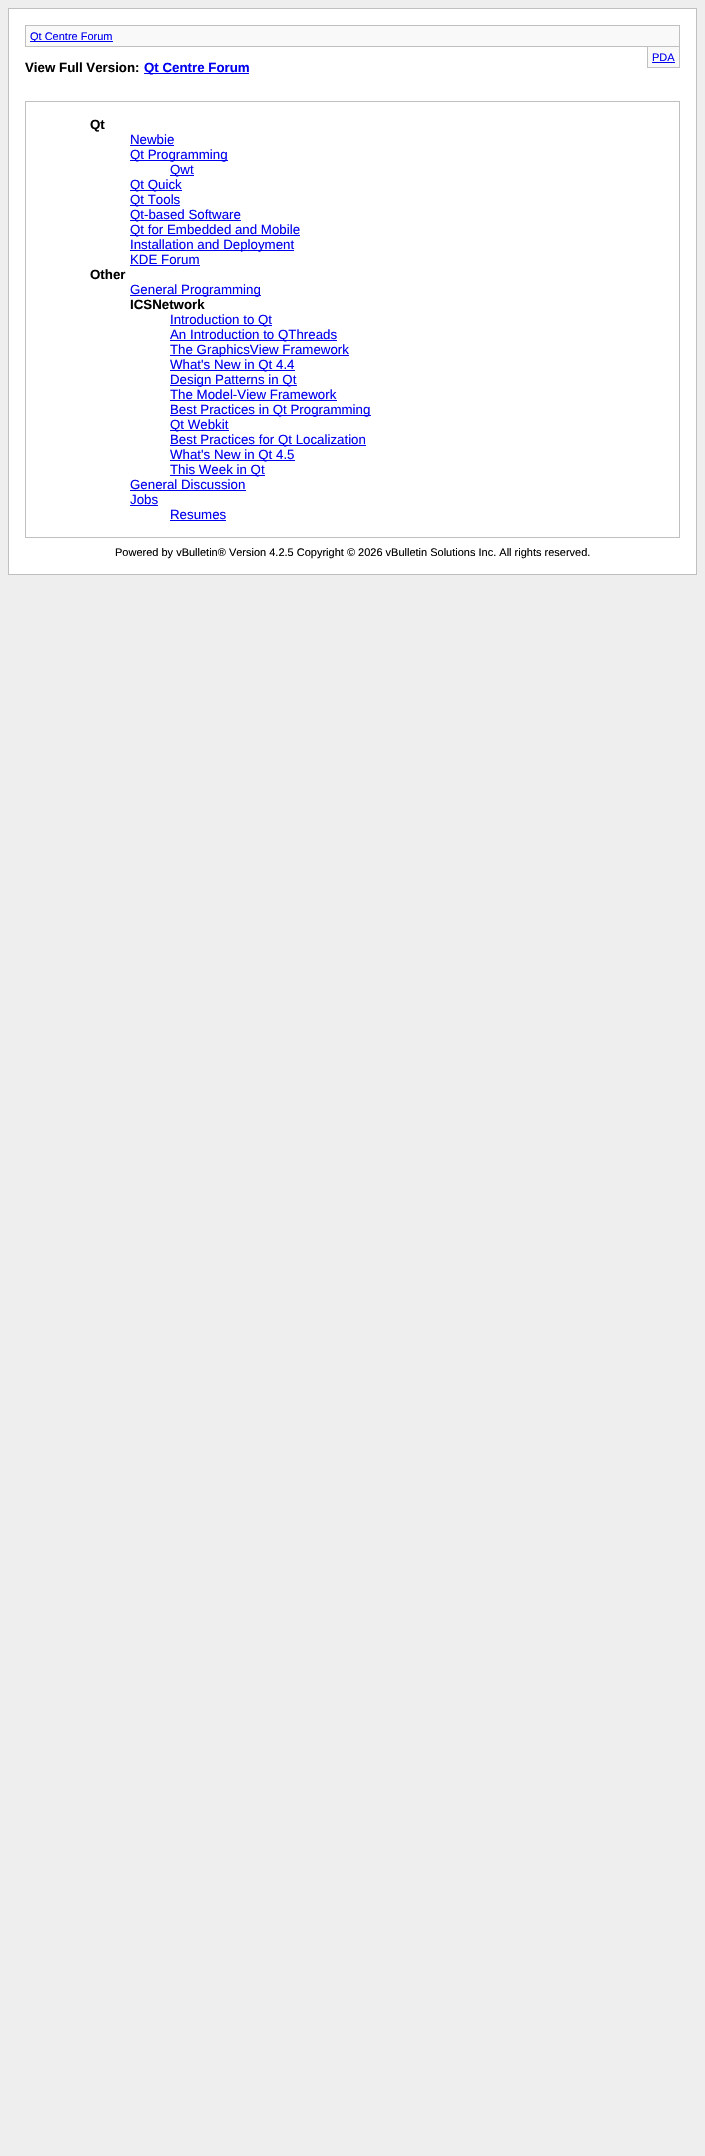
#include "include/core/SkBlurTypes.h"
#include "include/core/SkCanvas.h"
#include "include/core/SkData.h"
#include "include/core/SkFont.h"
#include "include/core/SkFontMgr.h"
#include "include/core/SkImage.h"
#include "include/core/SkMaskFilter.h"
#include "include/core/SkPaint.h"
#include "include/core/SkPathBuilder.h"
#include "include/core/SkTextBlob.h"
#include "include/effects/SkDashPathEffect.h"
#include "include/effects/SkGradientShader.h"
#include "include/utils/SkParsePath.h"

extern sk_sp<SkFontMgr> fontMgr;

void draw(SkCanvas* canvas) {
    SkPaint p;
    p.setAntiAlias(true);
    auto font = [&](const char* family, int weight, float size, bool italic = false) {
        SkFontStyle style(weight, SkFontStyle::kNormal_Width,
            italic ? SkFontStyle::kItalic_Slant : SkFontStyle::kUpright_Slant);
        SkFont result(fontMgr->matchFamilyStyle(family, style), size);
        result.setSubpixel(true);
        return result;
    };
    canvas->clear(0xFFEEEEEE);
    p.setColor(0xFFFFFFFF);
    canvas->drawRect(SkRect::MakeLTRB(8.5f, 8.5f, 696.5f, 574.5f), p);
    p.setStyle(SkPaint::kStroke_Style);
    p.setStrokeWidth(1);
    p.setColor(0xFFC0C0C0);
    canvas->drawRect(SkRect::MakeLTRB(8.5f, 8.5f, 696.5f, 574.5f), p);
    p.setStyle(SkPaint::kFill_Style);
    p.setColor(0xFFF9F9F9);
    canvas->drawRect(SkRect::MakeLTRB(25.5f, 25.5f, 679.5f, 46.5f), p);
    p.setStyle(SkPaint::kStroke_Style);
    p.setColor(0xFFC0C0C0);
    canvas->drawRect(SkRect::MakeLTRB(25.5f, 25.5f, 679.5f, 46.5f), p);
    p.setStyle(SkPaint::kFill_Style);
    p.setColor(0xFF0000EE);
    canvas->drawRect(SkRect::MakeLTRB(30, 41, 113, 42), p);
    auto font1 = font("Liberation Sans", 400, 11);
    canvas->drawString("Qt Centre Forum", 30, 40, font1, p);
    {
        const struct { float l, t, r, b; SkColor color; } items[] = {
            {648, 47, 679, 67, 0xFFF9F9F9},
            {679, 47, 680, 68, 0xFFC0C0C0},
            {647, 67, 680, 68, 0xFFC0C0C0},
            {647, 47, 648, 68, 0xFFC0C0C0},
        };
        for (auto [l, t, r, b, color] : items) {
            p.setColor(color);
            canvas->drawRect(SkRect::MakeLTRB(l, t, r, b), p);
        }
    }
    p.setColor(0xFF0000EE);
    canvas->drawString("PDA", 652, 61, font1, p);
    canvas->drawRect(SkRect::MakeLTRB(652, 62, 675, 63), p);
    auto font2 = font("Liberation Sans", 700, 13.3f);
    p.setColor(0xFF000000);
    canvas->drawString("View Full Version:", 25, 72, font2, p);
    p.setColor(0xFF0000EE);
    canvas->drawRect(SkRect::MakeLTRB(144, 73, 249, 74), p);
    canvas->drawString("Qt Centre Forum", 144, 72, font2, p);
    p.setStyle(SkPaint::kStroke_Style);
    p.setColor(0xFFC0C0C0);
    canvas->drawRect(SkRect::MakeLTRB(25.5f, 101.5f, 679.5f, 537.5f), p);
    p.setStyle(SkPaint::kFill_Style);
    p.setColor(0xFF000000);
    canvas->drawString("Qt", 90, 129, font2, p);
    auto font3 = font("Liberation Sans", 400, 13.3f);
    p.setColor(0xFF0000EE);
    canvas->drawString("Newbie", 130, 144, font3, p);
    canvas->drawRect(SkRect::MakeLTRB(130, 145, 174, 146), p);
    canvas->drawRect(SkRect::MakeLTRB(130, 160, 228, 161), p);
    canvas->drawString("Qt Programming", 130, 159, font3, p);
    canvas->drawRect(SkRect::MakeLTRB(170, 175, 194, 176), p);
    canvas->drawString("Qwt", 170, 174, font3, p);
    canvas->drawRect(SkRect::MakeLTRB(130, 190, 182, 191), p);
    canvas->drawString("Qt Quick", 130, 189, font3, p);
    canvas->drawRect(SkRect::MakeLTRB(130, 205, 180, 206), p);
    canvas->drawString("Qt Tools", 130, 204, font3, p);
    canvas->drawRect(SkRect::MakeLTRB(130, 220, 241, 221), p);
    canvas->drawString("Qt-based Software", 130, 219, font3, p);
    canvas->drawRect(SkRect::MakeLTRB(130, 235, 300, 236), p);
    canvas->drawString("Qt for Embedded and Mobile", 130, 234, font3, p);
    canvas->drawRect(SkRect::MakeLTRB(130, 250, 294, 251), p);
    canvas->drawString("Installation and Deployment", 130, 249, font3, p);
    canvas->drawString("KDE Forum", 130, 264, font3, p);
    canvas->drawRect(SkRect::MakeLTRB(130, 265, 200, 266), p);
    p.setColor(0xFF000000);
    canvas->drawString("Other", 90, 279, font2, p);
    p.setColor(0xFF0000EE);
    canvas->drawRect(SkRect::MakeLTRB(130, 295, 261, 296), p);
    canvas->drawString("General Programming", 130, 294, font3, p);
    p.setColor(0xFF000000);
    canvas->drawString("ICSNetwork", 130, 309, font2, p);
    p.setColor(0xFF0000EE);
    canvas->drawRect(SkRect::MakeLTRB(170, 325, 272, 326), p);
    canvas->drawString("Introduction to Qt", 170, 324, font3, p);
    canvas->drawRect(SkRect::MakeLTRB(170, 340, 337, 341), p);
    canvas->drawString("An Introduction to QThreads", 170, 339, font3, p);
    canvas->drawRect(SkRect::MakeLTRB(170, 355, 349, 356), p);
    canvas->drawString("The GraphicsView Framework", 170, 354, font3, p);
    canvas->drawRect(SkRect::MakeLTRB(170, 370, 295, 371), p);
    canvas->drawString("What's New in Qt 4.4", 170, 369, font3, p);
    canvas->drawRect(SkRect::MakeLTRB(170, 385, 297, 386), p);
    canvas->drawString("Design Patterns in Qt", 170, 384, font3, p);
    canvas->drawString("The Model-View Framework", 170, 399, font3, p);
    canvas->drawRect(SkRect::MakeLTRB(170, 400, 337, 401), p);
    canvas->drawRect(SkRect::MakeLTRB(170, 415, 371, 416), p);
    canvas->drawString("Best Practices in Qt Programming", 170, 414, font3, p);
    canvas->drawRect(SkRect::MakeLTRB(170, 430, 229, 431), p);
    canvas->drawString("Qt Webkit", 170, 429, font3, p);
    canvas->drawRect(SkRect::MakeLTRB(170, 445, 366, 446), p);
    canvas->drawString("Best Practices for Qt Localization", 170, 444, font3, p);
    canvas->drawRect(SkRect::MakeLTRB(170, 460, 295, 461), p);
    canvas->drawString("What's New in Qt 4.5", 170, 459, font3, p);
    canvas->drawRect(SkRect::MakeLTRB(170, 475, 265, 476), p);
    canvas->drawString("This Week in Qt", 170, 474, font3, p);
    canvas->drawString("General Discussion", 130, 489, font3, p);
    canvas->drawRect(SkRect::MakeLTRB(130, 490, 246, 491), p);
    canvas->drawString("Jobs", 130, 504, font3, p);
    canvas->drawRect(SkRect::MakeLTRB(130, 505, 158, 506), p);
    canvas->drawString("Resumes", 170, 519, font3, p);
    canvas->drawRect(SkRect::MakeLTRB(170, 520, 226, 521), p);
    p.setColor(0xFF000000);
    canvas->drawString("Powered by vBulletin® Version 4.2.5 Copyright © 2026 vBulletin Solutions Inc. All rights reserved.", 115, 556, font1, p);
}
